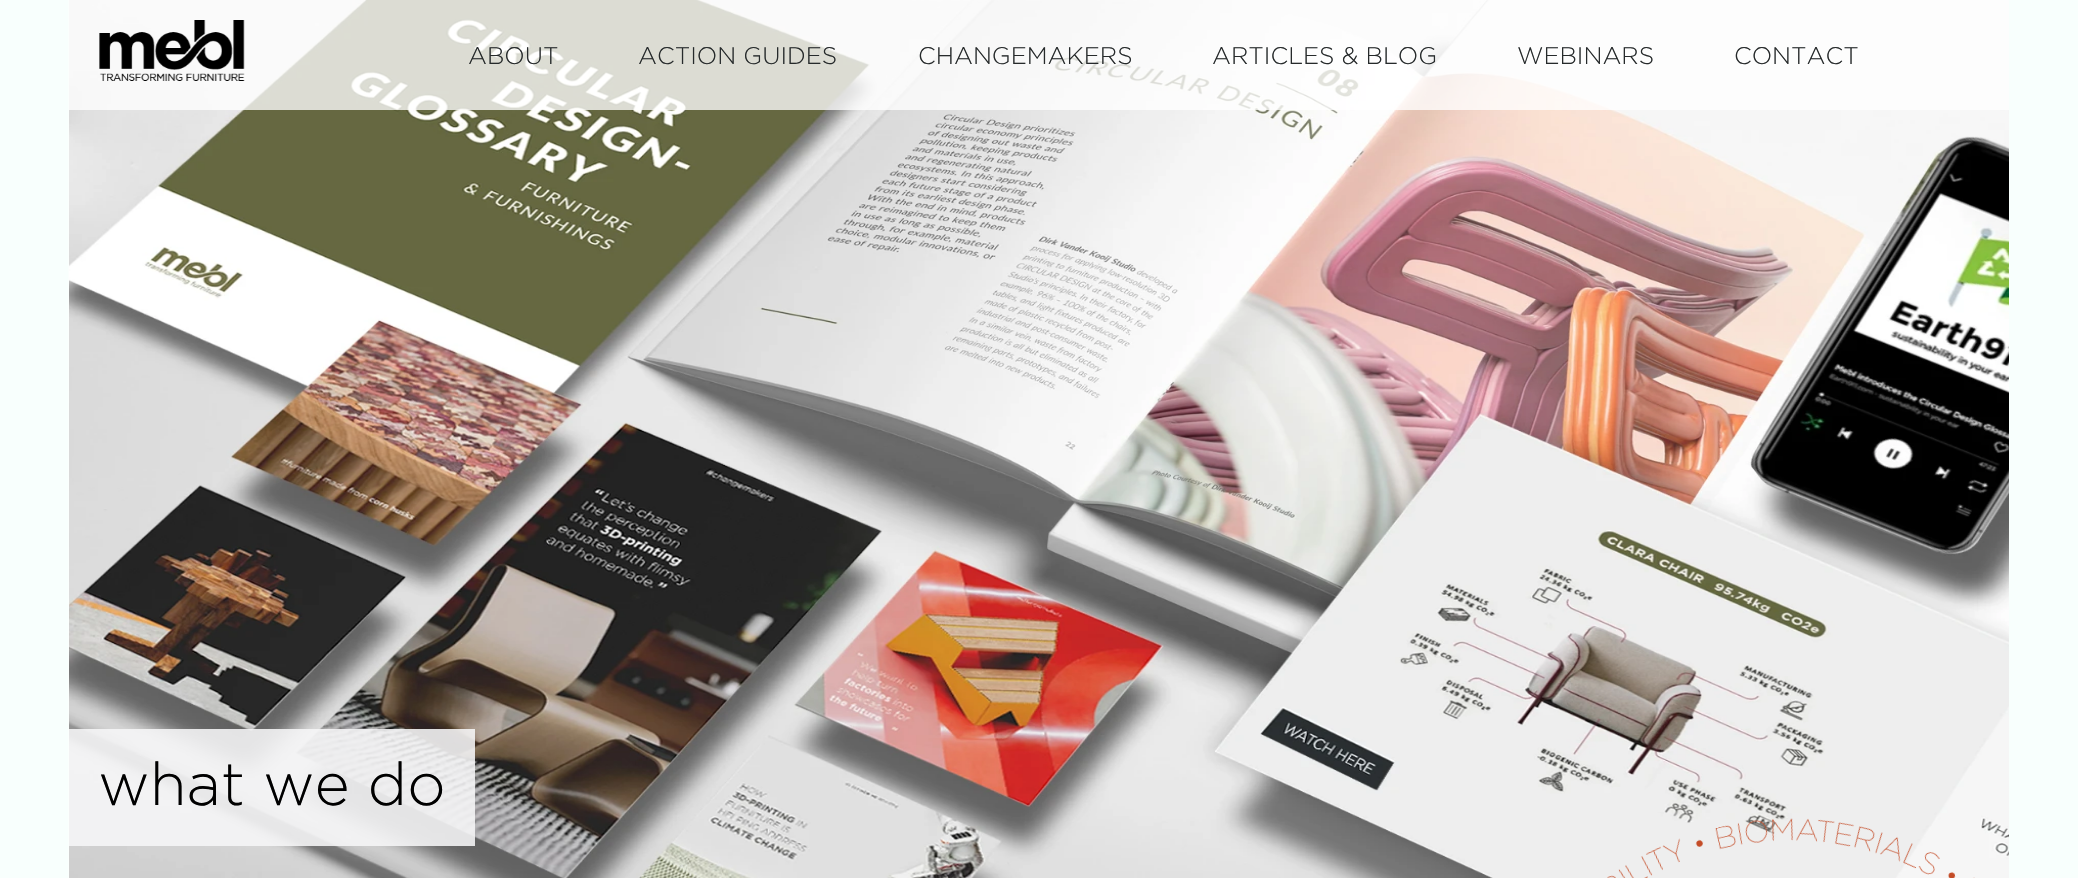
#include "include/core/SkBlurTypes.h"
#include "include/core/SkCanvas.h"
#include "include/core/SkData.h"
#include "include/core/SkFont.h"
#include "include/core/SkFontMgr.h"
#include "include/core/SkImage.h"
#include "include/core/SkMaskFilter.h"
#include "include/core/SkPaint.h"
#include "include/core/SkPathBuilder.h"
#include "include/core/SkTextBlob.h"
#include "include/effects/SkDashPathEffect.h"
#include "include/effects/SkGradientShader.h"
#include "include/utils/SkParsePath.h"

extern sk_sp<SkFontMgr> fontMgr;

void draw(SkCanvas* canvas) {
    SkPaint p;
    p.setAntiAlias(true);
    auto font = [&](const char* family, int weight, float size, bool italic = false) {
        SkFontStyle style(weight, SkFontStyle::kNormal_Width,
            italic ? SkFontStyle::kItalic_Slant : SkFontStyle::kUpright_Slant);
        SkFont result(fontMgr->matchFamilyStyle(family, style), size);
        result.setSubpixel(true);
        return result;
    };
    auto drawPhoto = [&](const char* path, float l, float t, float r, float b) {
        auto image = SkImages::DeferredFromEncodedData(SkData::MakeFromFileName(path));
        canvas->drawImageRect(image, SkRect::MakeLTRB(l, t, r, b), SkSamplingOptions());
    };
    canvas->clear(0xFFFFFFFF);
    drawPhoto("media/1.png", 0, 0, 2078, 878);
    drawPhoto("media/3.png", 69, 0, 2009, 878);
    p.setColor(0xC4FFFFFF);
    canvas->drawRect(SkRect::MakeLTRB(69, 0, 2009, 110), p);
    drawPhoto("media/2.png", 99, 20, 245, 81);
    auto font1 = font("Gotham", 300, 24);
    p.setColor(0xFF262A2B);
    {
        const struct { const char* s; float x, y; } items[] = {
            {"ABOUT", 468, 64},
            {"ACTION GUIDES", 638, 64},
            {"CHANGEMAKERS", 918, 64},
            {"ARTICLES & BLOG", 1212, 64},
            {"WEBINARS", 1517, 64},
            {"CONTACT", 1734, 64},
        };
        for (auto [s, x, y] : items) {
            canvas->drawString(s, x, y, font1, p);
        }
    }
    p.setColor(0xE0F6F6F7);
    canvas->drawRect(SkRect::MakeLTRB(69, 729, 475, 846), p);
    auto font2 = font("Gotham", 300, 60);
    p.setColor(0xFF000000);
    canvas->drawString("what we do", 98, 805, font2, p);
    drawPhoto("media/4.png", 1607, 818, 1975, 878);
}
